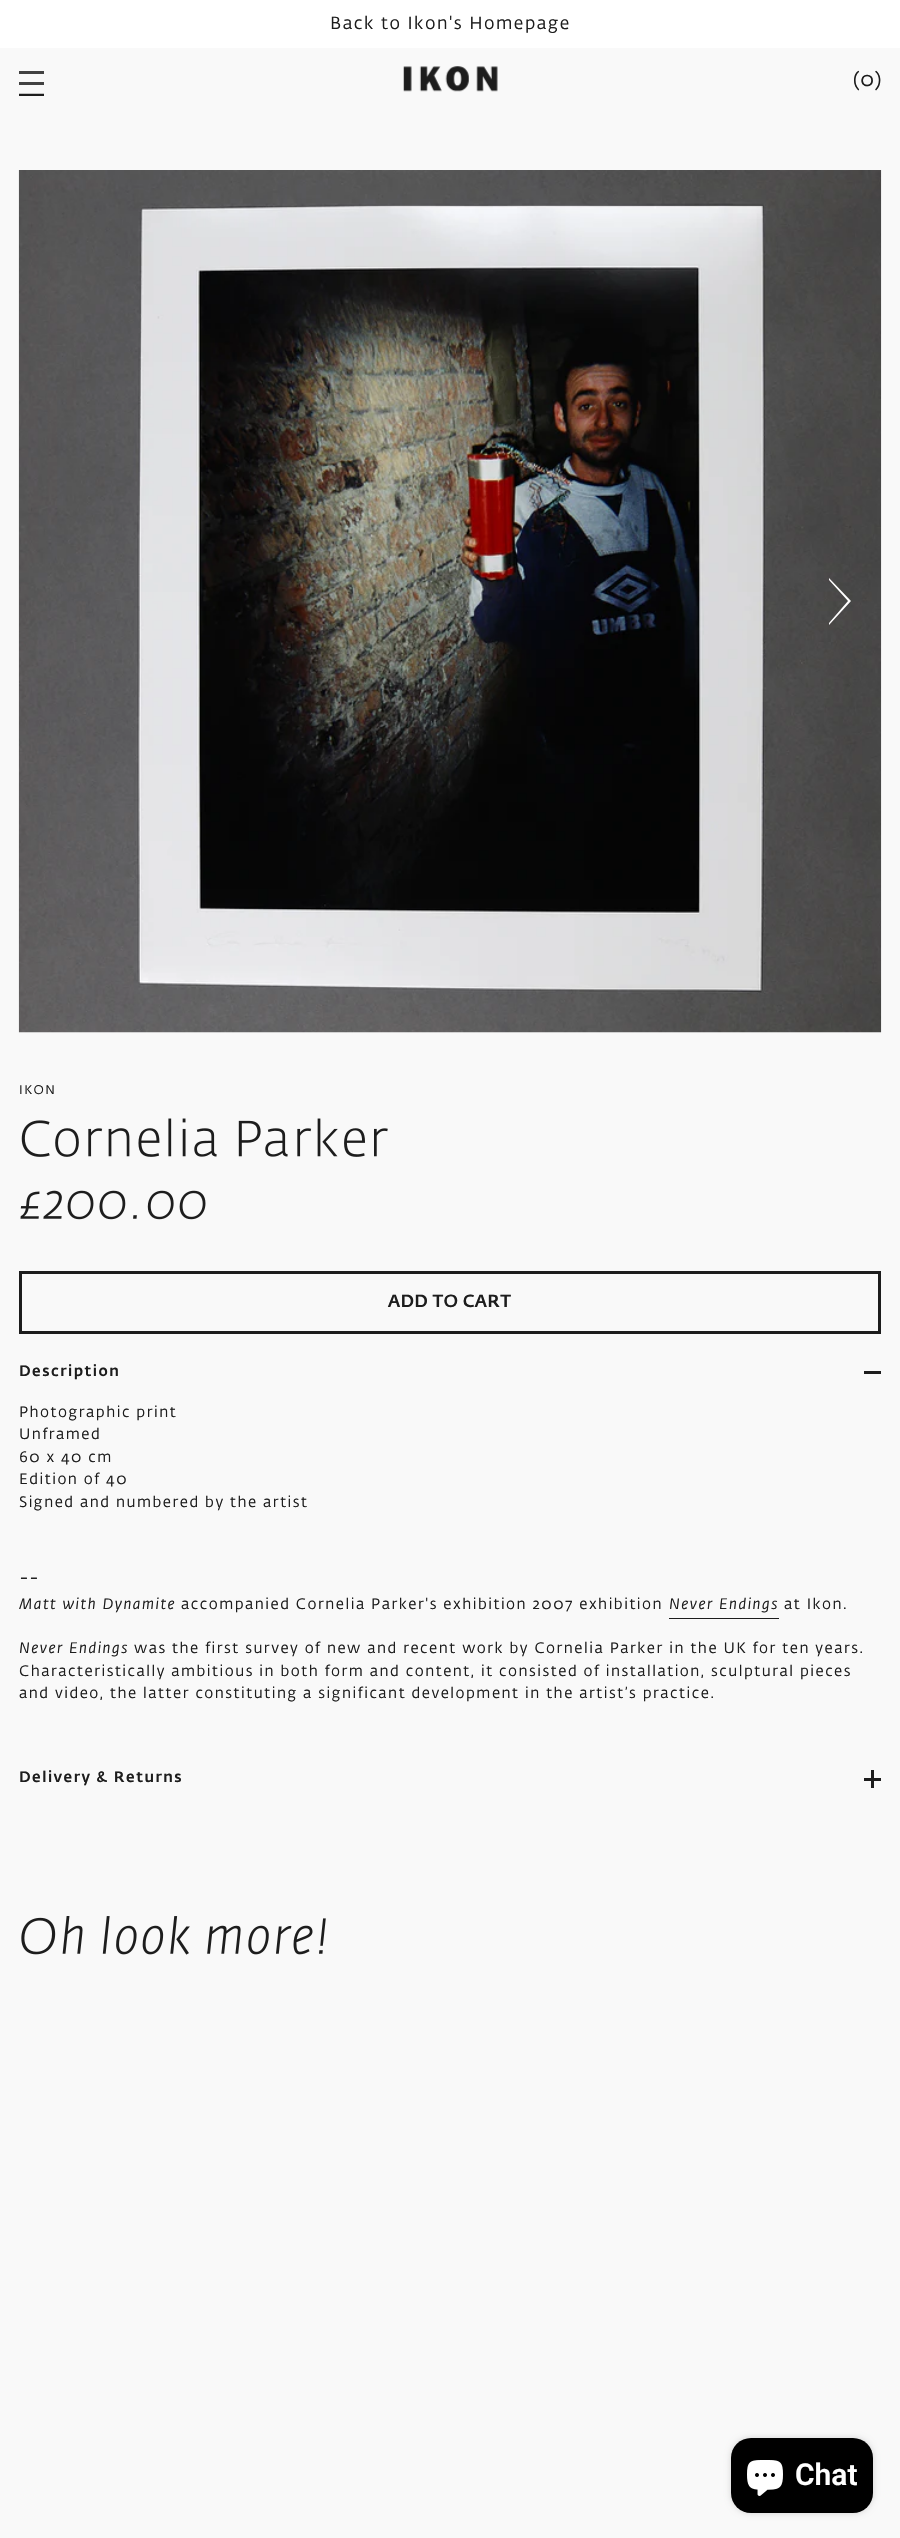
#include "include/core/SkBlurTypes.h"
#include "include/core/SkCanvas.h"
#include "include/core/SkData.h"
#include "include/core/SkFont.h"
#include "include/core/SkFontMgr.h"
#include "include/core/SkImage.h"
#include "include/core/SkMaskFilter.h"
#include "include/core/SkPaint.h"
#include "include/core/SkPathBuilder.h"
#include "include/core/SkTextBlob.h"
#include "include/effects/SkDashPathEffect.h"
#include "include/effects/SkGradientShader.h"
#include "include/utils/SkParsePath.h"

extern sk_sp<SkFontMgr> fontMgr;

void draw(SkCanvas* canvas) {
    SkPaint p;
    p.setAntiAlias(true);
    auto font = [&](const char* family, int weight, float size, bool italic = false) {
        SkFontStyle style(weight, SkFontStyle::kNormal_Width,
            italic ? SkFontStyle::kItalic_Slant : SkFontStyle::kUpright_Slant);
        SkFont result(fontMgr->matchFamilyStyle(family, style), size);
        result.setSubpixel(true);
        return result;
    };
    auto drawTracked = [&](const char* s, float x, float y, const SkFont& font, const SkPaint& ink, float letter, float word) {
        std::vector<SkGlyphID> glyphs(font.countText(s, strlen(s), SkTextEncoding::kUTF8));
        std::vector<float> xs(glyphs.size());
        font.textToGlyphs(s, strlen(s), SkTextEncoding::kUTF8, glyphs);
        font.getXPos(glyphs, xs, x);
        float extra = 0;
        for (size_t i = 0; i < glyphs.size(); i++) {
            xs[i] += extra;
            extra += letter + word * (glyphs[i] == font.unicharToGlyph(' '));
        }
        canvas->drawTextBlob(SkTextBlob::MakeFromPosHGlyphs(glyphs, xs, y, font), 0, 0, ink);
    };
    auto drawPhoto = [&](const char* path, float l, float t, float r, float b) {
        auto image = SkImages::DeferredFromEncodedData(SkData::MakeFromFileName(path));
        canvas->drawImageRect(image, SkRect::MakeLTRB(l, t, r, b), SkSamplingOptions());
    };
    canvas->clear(0xFFF9F9F9);
    p.setColor(0xFFFFFFFF);
    canvas->drawRect(SkRect::MakeLTRB(0, 0, 900, 48), p);
    auto font1 = font("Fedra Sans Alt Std", 400, 17.5f);
    p.setColor(0xFF1D1D1D);
    drawTracked("Back to Ikon's Homepage", 330, 29, font1, p, 1.5f, 0);
    canvas->save();
    canvas->clipRect(SkRect::MakeLTRB(19, 71, 44, 96));
    p.setStyle(SkPaint::kStroke_Style);
    p.setStrokeWidth(2.5f);
    canvas->drawPath(SkPathBuilder().moveTo(19, 95).lineTo(44, 95).detach(), p);
    canvas->restore();
    p.setStyle(SkPaint::kFill_Style);
    p.setColor(0xFF424242);
    canvas->drawRect(SkRect::MakeLTRB(19, 82, 44, 85), p);
    canvas->drawRect(SkRect::MakeLTRB(19, 71, 44, 74), p);
    drawPhoto("media/1.png", 403, 66, 498, 92);
    auto font2 = font("Fedra Sans Alt Std", 400, 20);
    p.setColor(0xFF1D1D1D);
    drawTracked("(0)", 853, 86, font2, p, 0.25f, 0);
    drawPhoto("media/2.png", 18, 170, 882, 1033);
    p.setColor(0xFFFFFFFF);
    canvas->drawPath(SkPathBuilder().moveTo(851, 601).lineTo(829, 578).lineTo(829, 580).lineTo(848, 601).lineTo(829, 623).lineTo(829, 625).close().detach(), p);
    auto font3 = font("Fedra Sans Alt Std", 400, 12.5f);
    p.setColor(0xFF1D1D1D);
    drawTracked("IKON", 19, 1094, font3, p, 1.5f, 0);
    drawPhoto("media/3.png", 21, 1118, 388, 1157);
    drawPhoto("media/4.png", 20, 1190, 206, 1220);
    p.setStyle(SkPaint::kStroke_Style);
    p.setStrokeWidth(3);
    canvas->drawRect(SkRect::MakeLTRB(20.5f, 1272.5f, 879.5f, 1332.5f), p);
    auto font4 = font("Fedra Sans Alt Std", 500, 17.5f);
    p.setStyle(SkPaint::kFill_Style);
    drawTracked("ADD TO CART", 388, 1307, font4, p, 0.25f, 0);
    auto font5 = font("Fedra Sans Alt Std", 500, 15);
    drawTracked("Description", 19, 1376, font5, p, 1.5f, 0);
    canvas->drawRect(SkRect::MakeLTRB(864, 1371, 881, 1374), p);
    auto font6 = font("Fedra Sans Alt Std", 400, 15);
    {
        const struct { const char* s; float x, y; } items[] = {
            {"Photographic print", 19, 1417},
            {"Unframed", 19, 1439},
            {"60 x 40 cm", 19, 1462},
            {"Edition of 40", 19, 1484},
            {"Signed and numbered by the artist", 19, 1507},
        };
        for (auto [s, x, y] : items) {
            drawTracked(s, x, y, font6, p, 1.5f, 0);
        }
    }
    drawTracked("--", 19, 1584, font2, p, 0.25f, 0);
    auto font7 = font("Fedra Sans Alt Std", 400, 15, true);
    drawTracked("Matt with Dynamite", 19, 1609, font7, p, 1.5f, 0);
    drawTracked("accompanied Cornelia Parker's exhibition 2007 exhibition", 181, 1609, font6, p, 1.5f, 0);
    canvas->drawRect(SkRect::MakeLTRB(669, 1618, 779, 1619), p);
    drawTracked("Never Endings", 669, 1609, font7, p, 1.5f, 0);
    drawTracked("at Ikon.", 784, 1609, font6, p, 1.5f, 0);
    drawTracked("Never Endings", 19, 1653, font7, p, 1.5f, 0);
    {
        const struct { const char* s; float x, y; } items[] = {
            {"was the first survey of new and recent work by Cornelia Parker in the UK for ten years.", 134, 1653},
            {"Characteristically ambitious in both form and content, it consisted of installation, sculptural pieces", 19, 1676},
            {"and video, the latter constituting a significant development in the artist’s practice.", 19, 1698},
        };
        for (auto [s, x, y] : items) {
            drawTracked(s, x, y, font6, p, 1.5f, 0);
        }
    }
    drawTracked("Delivery & Returns", 19, 1782, font5, p, 1.5f, 0);
    canvas->drawRect(SkRect::MakeLTRB(871, 1770, 874, 1788), p);
    canvas->drawRect(SkRect::MakeLTRB(864, 1778, 881, 1781), p);
    drawPhoto("media/5.png", 21, 1916, 326, 1955);
    p.setColor(0x26000000);
    p.setMaskFilter(SkMaskFilter::MakeBlur(kNormal_SkBlurStyle, 3));
    canvas->drawRoundRect(SkRect::MakeLTRB(731, 2438, 873, 2513), 20, 20, p);
    p.setMaskFilter(nullptr);
    p.setColor(0xFF000000);
    canvas->drawRoundRect(SkRect::MakeLTRB(731, 2438, 873, 2513), 20, 20, p);
    drawPhoto("media/6.png", 747, 2460, 783, 2496);
    auto font8 = font("Roboto", 600, 30);
    p.setColor(0xFFFFFFFF);
    canvas->drawString("Chat", 795, 2485, font8, p);
}
